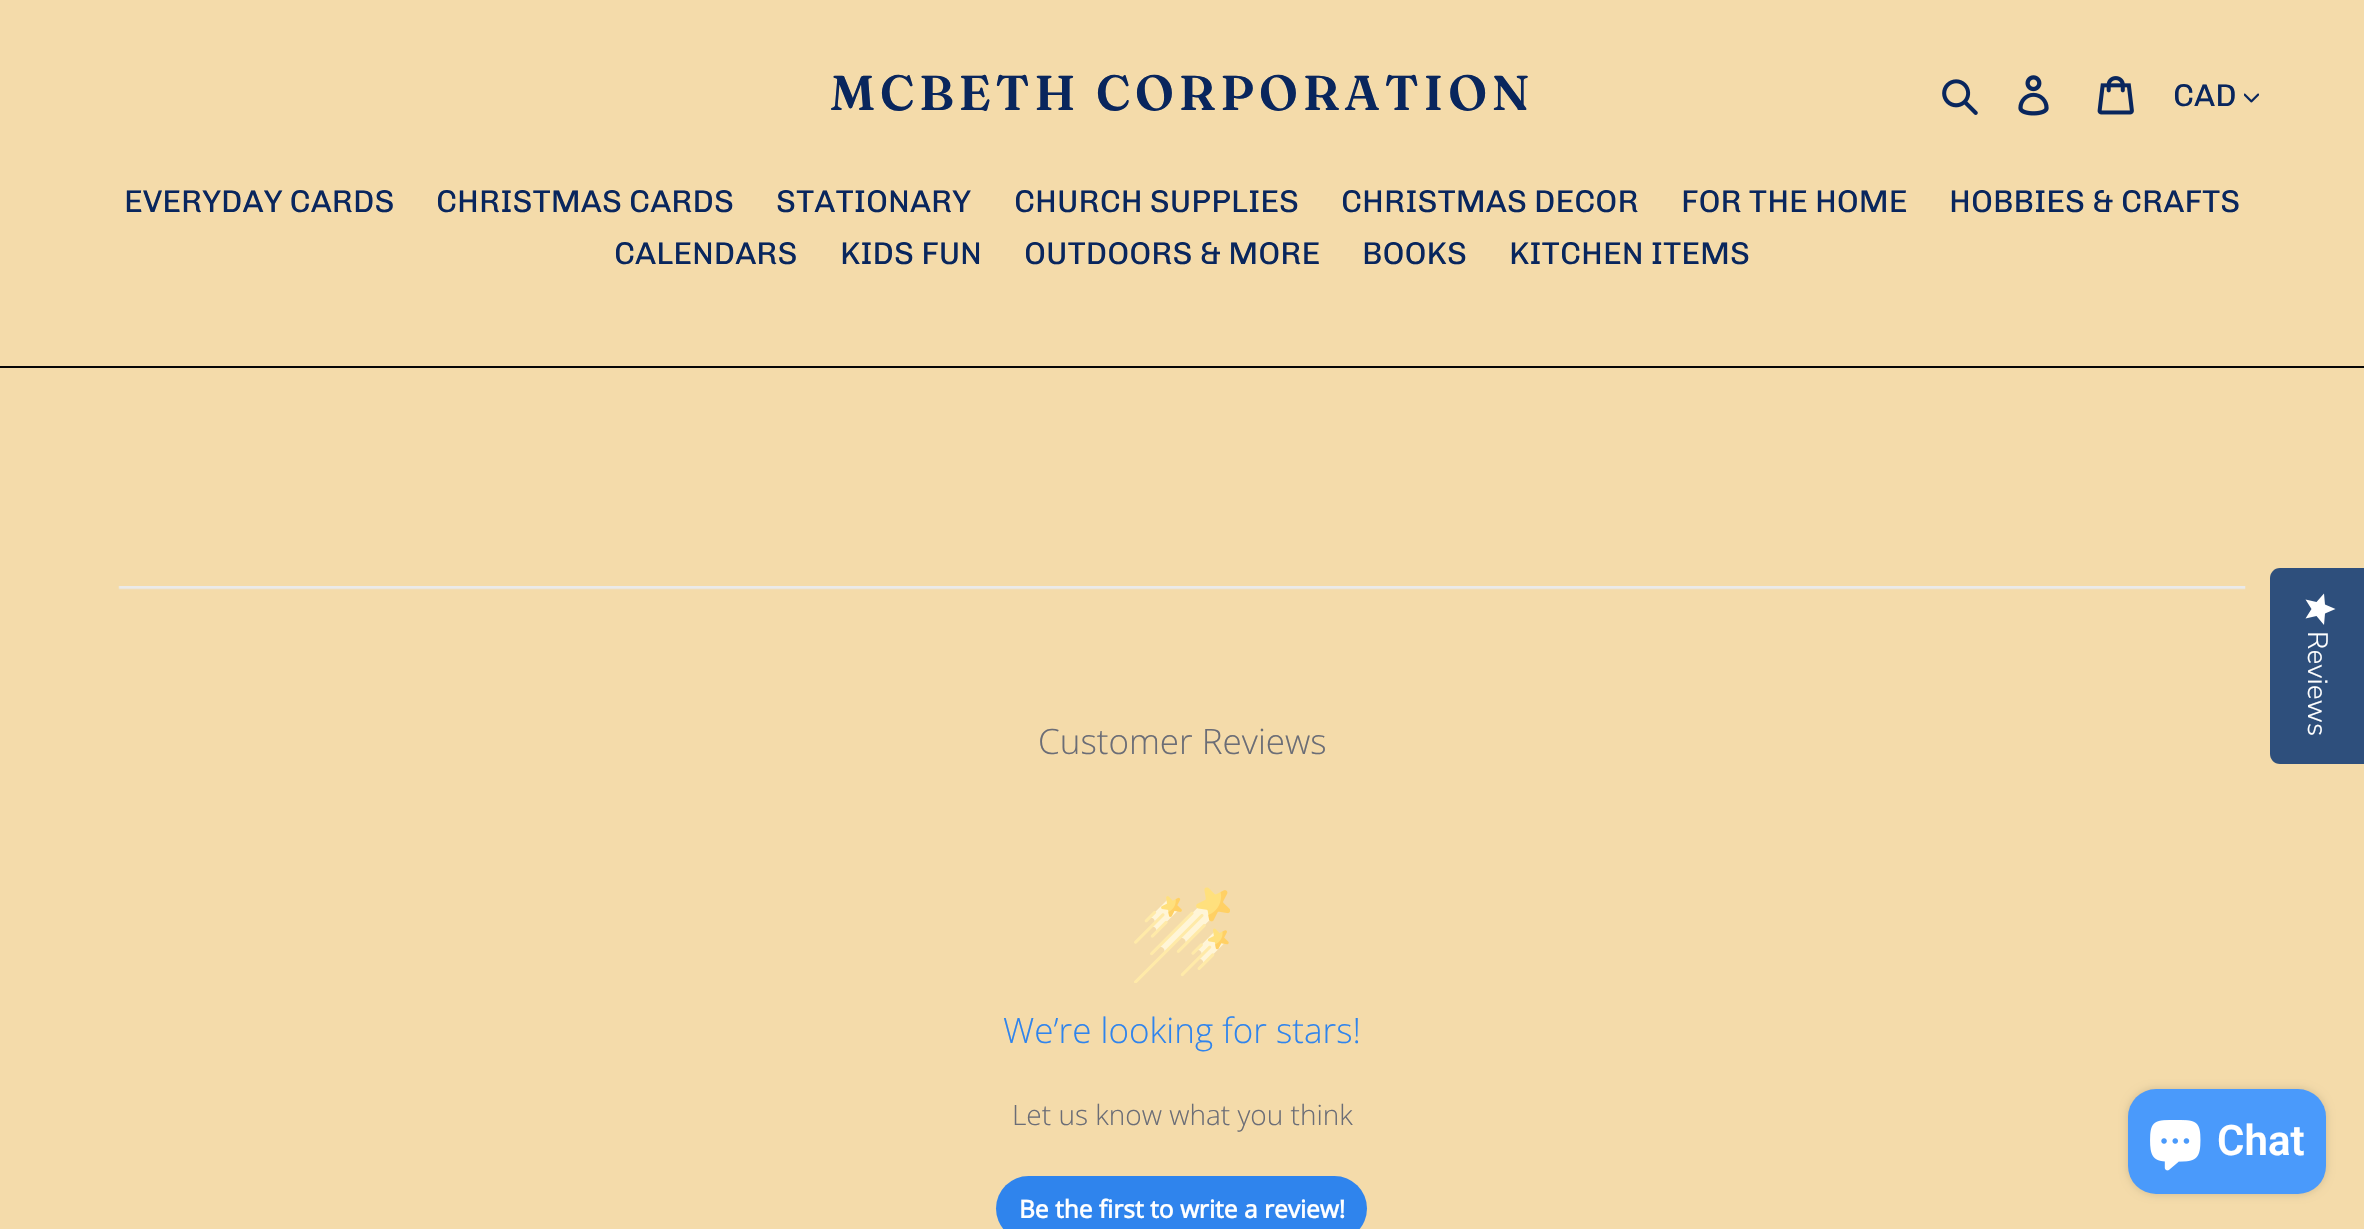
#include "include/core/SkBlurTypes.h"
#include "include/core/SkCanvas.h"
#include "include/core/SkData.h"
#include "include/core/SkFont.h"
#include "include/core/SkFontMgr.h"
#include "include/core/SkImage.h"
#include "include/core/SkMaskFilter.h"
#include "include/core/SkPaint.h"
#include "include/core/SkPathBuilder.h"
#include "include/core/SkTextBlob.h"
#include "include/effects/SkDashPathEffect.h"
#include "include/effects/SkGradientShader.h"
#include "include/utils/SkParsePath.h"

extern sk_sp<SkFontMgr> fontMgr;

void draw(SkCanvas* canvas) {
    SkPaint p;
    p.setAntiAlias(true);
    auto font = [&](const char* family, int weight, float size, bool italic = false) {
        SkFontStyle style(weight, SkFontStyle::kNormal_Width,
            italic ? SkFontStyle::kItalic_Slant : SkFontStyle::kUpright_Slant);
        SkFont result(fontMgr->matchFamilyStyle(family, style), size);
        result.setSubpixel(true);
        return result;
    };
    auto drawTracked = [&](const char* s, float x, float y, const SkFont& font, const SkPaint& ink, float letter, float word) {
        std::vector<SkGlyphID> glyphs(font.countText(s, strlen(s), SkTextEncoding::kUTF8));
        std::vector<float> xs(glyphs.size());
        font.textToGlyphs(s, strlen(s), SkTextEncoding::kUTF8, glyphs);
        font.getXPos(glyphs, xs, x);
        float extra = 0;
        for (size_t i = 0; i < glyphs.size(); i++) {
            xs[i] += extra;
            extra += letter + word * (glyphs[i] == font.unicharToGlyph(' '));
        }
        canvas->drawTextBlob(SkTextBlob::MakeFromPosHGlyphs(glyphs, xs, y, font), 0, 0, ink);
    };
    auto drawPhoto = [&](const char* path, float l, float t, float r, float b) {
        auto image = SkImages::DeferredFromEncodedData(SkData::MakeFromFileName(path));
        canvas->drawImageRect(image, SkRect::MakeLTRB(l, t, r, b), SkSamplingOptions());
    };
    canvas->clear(0xFFF4DBAA);
    auto font1 = font("Fraunces", 600, 49);
    p.setColor(0xFF09265D);
    drawTracked("MCBETH CORPORATION", 830, 110, font1, p, 4.9f, 0);
    drawPhoto("media/1.png", 1942, 79, 1978, 115);
    drawPhoto("media/2.png", 2018, 75, 2049, 116);
    drawPhoto("media/3.png", 2097, 76, 2134, 115);
    auto font2 = font("Chivo", 400, 31.5f);
    canvas->drawString("CAD", 2173, 106, font2, p);
    drawPhoto("media/4.png", 2244, 93, 2259, 103);
    p.setColor(0xFF060606);
    canvas->drawRect(SkRect::MakeLTRB(0, 366, 2364, 368), p);
    p.setColor(0xFF09265D);
    {
        const struct { const char* s; float x, y; } items[] = {
            {"EVERYDAY CARDS", 124, 212},
            {"CHRISTMAS CARDS", 436, 212},
            {"STATIONARY", 776, 212},
            {"CHURCH SUPPLIES", 1014, 212},
            {"CHRISTMAS DECOR", 1341, 212},
            {"FOR THE HOME", 1681, 212},
            {"HOBBIES & CRAFTS", 1949, 212},
            {"CALENDARS", 614, 264},
            {"KIDS FUN", 840, 264},
            {"OUTDOORS & MORE", 1024, 264},
            {"BOOKS", 1362, 264},
            {"KITCHEN ITEMS", 1509, 264},
        };
        for (auto [s, x, y] : items) {
            canvas->drawString(s, x, y, font2, p);
        }
    }
    p.setColor(0xFF2E4F7C);
    canvas->drawPath(SkPathBuilder().moveTo(2364, 568).lineTo(2364, 764).lineTo(2280, 764).cubicTo(2274, 764, 2270, 759, 2270, 754).lineTo(2270, 578).cubicTo(2270, 573, 2274, 568, 2280, 568).close().detach(), p);
    {
        const SkColor colors[] = {0xFFFFFFFF, 0xFFEAEAEA};
        const float stops[] = {1, 1};
        const SkPoint ends[] = {{2335, 593}, {2335, 625}};
        p.setShader(SkGradientShader::MakeLinear(ends, colors, stops, 2, SkTileMode::kClamp));
        p.setAlpha(255);
    }
    canvas->drawPath(SkPathBuilder().moveTo(2311.5f, 609).lineTo(2305.5f, 618.5f).lineTo(2316.5f, 616).lineTo(2324, 625).lineTo(2325, 613.5f).lineTo(2335.5f, 609).lineTo(2325, 604.5f).lineTo(2324, 593.5f).lineTo(2316.5f, 602).lineTo(2305.5f, 599.5f).close().detach(), p);
    auto font3 = font("Nunito Sans", 300, 28);
    p.setShader(nullptr);
    p.setColor(0xFFFFFFFF);
    canvas->save();
    canvas->rotate(90, 2308, 631);
    canvas->drawString("Reviews", 2308, 631, font3, p);
    canvas->restore();
    drawPhoto("media/5.png", 118, 586, 2246, 590);
    auto font4 = font("Open Sans", 300, 35);
    p.setColor(0xFF6B6D76);
    canvas->drawString("Customer Reviews", 1038, 754, font4, p);
    drawPhoto("media/6.png", 1134, 887, 1230, 983);
    p.setColor(0xFF2F84ED);
    canvas->drawString("We’re looking for stars!", 1003, 1043, font4, p);
    auto font5 = font("Open Sans", 300, 28);
    p.setColor(0xFF6B6D76);
    canvas->drawString("Let us know what you think", 1012, 1125, font5, p);
    p.setColor(0xFF2F84ED);
    canvas->drawRoundRect(SkRect::MakeLTRB(996, 1176, 1367, 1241), 32.5f, 32.5f, p);
    auto font6 = font("Open Sans", 700, 24.5f);
    p.setColor(0xFFFFFFFF);
    canvas->drawString("Be the first to write a review!", 1019, 1218, font6, p);
    p.setColor(0x26000000);
    p.setMaskFilter(SkMaskFilter::MakeBlur(kNormal_SkBlurStyle, 4.5f));
    canvas->drawRoundRect(SkRect::MakeLTRB(2128, 1089, 2326, 1194), 28, 28, p);
    p.setMaskFilter(nullptr);
    p.setColor(0xFF4A9AFB);
    canvas->drawRoundRect(SkRect::MakeLTRB(2128, 1089, 2326, 1194), 28, 28, p);
    drawPhoto("media/7.png", 2150, 1120, 2201, 1171);
    auto font7 = font("Roboto", 600, 42);
    p.setColor(0xFFFFFFFF);
    canvas->drawString("Chat", 2217, 1155, font7, p);
}
